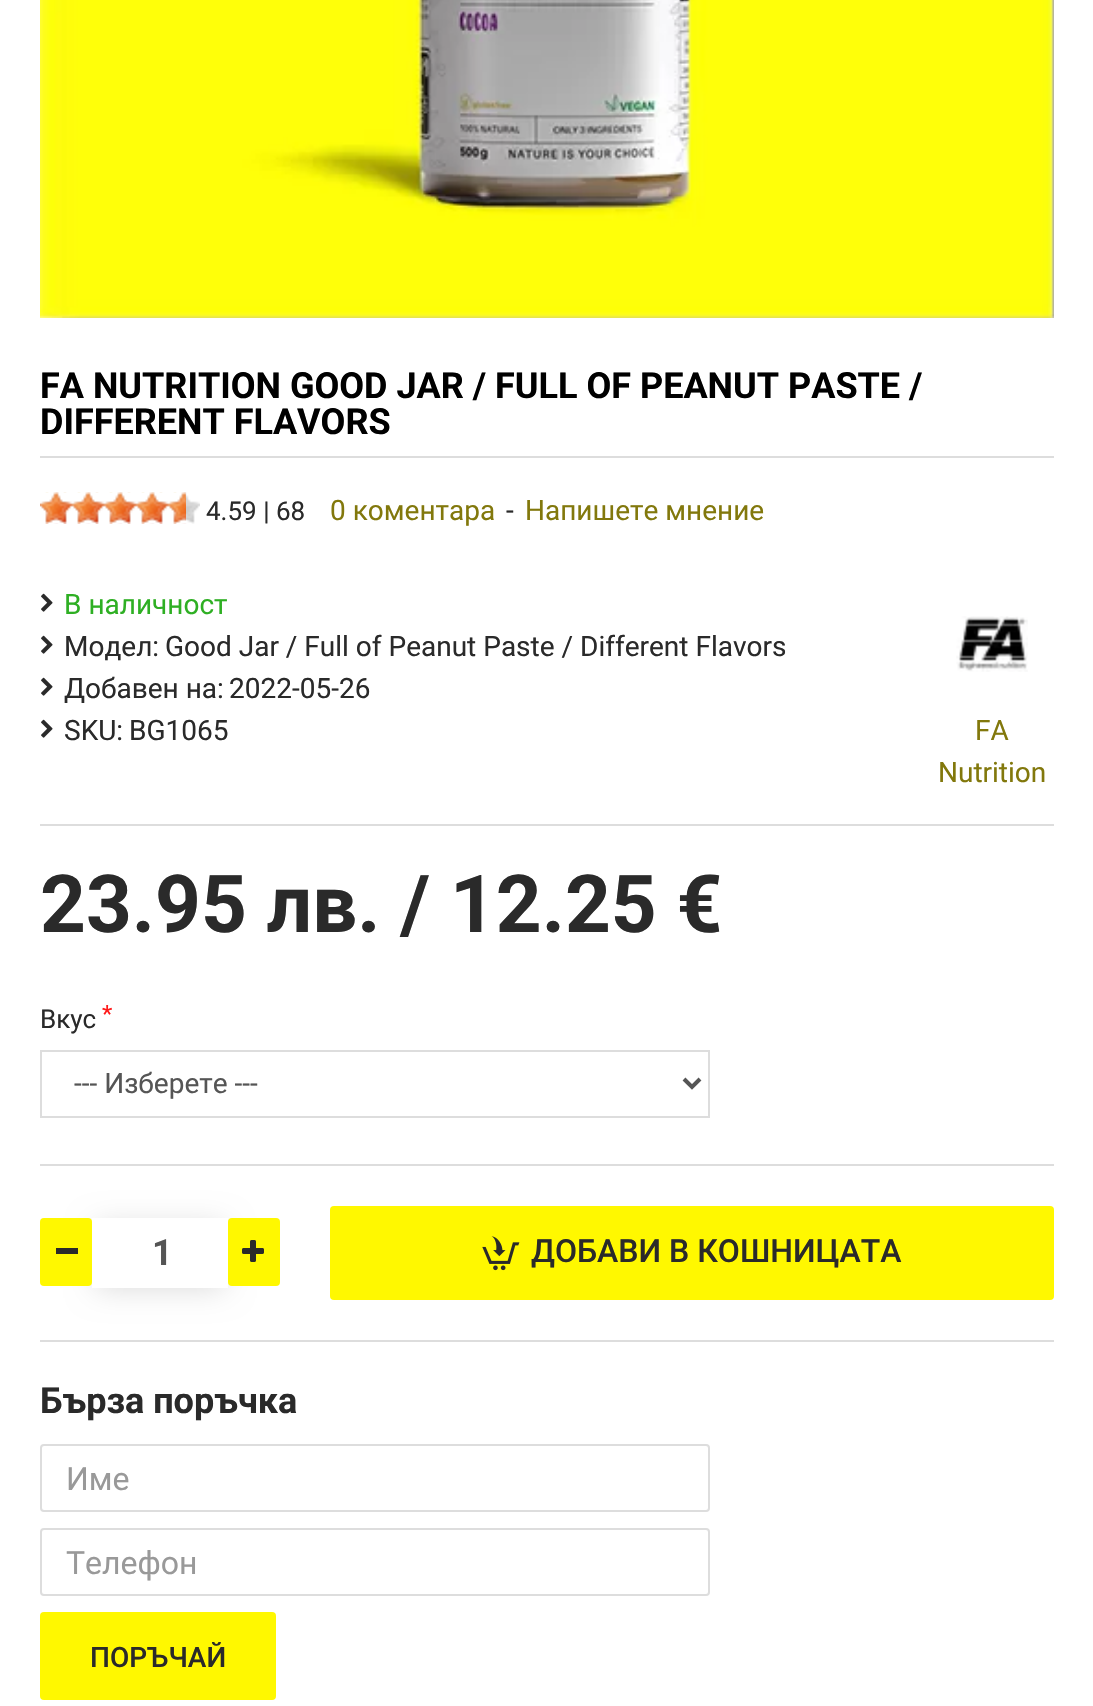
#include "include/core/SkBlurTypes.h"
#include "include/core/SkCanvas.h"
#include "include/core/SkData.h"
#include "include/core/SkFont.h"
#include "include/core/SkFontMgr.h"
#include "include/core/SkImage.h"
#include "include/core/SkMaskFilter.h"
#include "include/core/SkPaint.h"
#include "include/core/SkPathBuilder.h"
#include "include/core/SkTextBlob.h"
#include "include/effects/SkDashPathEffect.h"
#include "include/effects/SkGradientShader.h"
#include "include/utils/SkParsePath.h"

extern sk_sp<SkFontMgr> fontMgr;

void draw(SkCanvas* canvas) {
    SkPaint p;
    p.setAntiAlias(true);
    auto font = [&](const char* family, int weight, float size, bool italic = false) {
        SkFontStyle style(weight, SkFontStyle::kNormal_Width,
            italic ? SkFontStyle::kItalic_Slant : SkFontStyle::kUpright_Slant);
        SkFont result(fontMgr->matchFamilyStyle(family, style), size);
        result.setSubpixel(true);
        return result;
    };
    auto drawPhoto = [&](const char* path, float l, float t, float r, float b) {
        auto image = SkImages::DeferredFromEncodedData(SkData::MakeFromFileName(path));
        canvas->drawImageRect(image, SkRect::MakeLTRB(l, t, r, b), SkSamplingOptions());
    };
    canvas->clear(0xFFFFFFFF);
    drawPhoto("media/1.png", 40, 0, 1054, 318);
    p.setColor(0xFFDDDDDD);
    canvas->drawRect(SkRect::MakeLTRB(40, 456, 1054, 458), p);
    auto font1 = font("Roboto", 700, 36);
    p.setColor(0xFF000000);
    canvas->drawString("FA NUTRITION GOOD JAR / FULL OF PEANUT PASTE /", 40, 398, font1, p);
    canvas->drawString("DIFFERENT FLAVORS", 40, 434, font1, p);
    drawPhoto("media/2.png", 40, 492, 200, 524);
    drawPhoto("media/3.png", 40, 492, 186, 524);
    auto font2 = font("Roboto", 400, 26);
    p.setColor(0xFF2A2A2A);
    canvas->drawString("4.59 | 68", 206, 520, font2, p);
    auto font3 = font("Roboto", 400, 28);
    p.setColor(0xFF82780C);
    canvas->drawString("0 коментара", 330, 520, font3, p);
    p.setColor(0xFF2A2A2A);
    canvas->drawString("-", 506, 520, font3, p);
    p.setColor(0xFF82780C);
    canvas->drawString("Напишете мнение", 525, 520, font3, p);
    drawPhoto("media/4.png", 41, 593, 53, 612);
    p.setColor(0xFF2EAF23);
    canvas->drawString("В наличност", 64, 614, font3, p);
    drawPhoto("media/4.png", 41, 635, 53, 654);
    p.setColor(0xFF2A2A2A);
    canvas->drawString("Модел:", 64, 656, font3, p);
    canvas->drawString("Good Jar / Full of Peanut Paste / Different Flavors", 165, 656, font3, p);
    drawPhoto("media/4.png", 41, 677, 53, 696);
    canvas->drawString("Добавен на:", 64, 698, font3, p);
    canvas->drawString("2022-05-26", 229, 698, font3, p);
    drawPhoto("media/4.png", 41, 719, 53, 738);
    canvas->drawString("SKU:", 64, 740, font3, p);
    canvas->drawString("BG1065", 129, 740, font3, p);
    drawPhoto("media/5.png", 956, 616, 1028, 672);
    p.setColor(0xFF82780C);
    canvas->drawString("FA", 975, 740, font3, p);
    canvas->drawString("Nutrition", 938, 782, font3, p);
    p.setColor(0xFFDDDDDD);
    canvas->drawRect(SkRect::MakeLTRB(40, 824, 1054, 826), p);
    auto font4 = font("Roboto", 700, 80);
    p.setColor(0xFF2A2A2A);
    canvas->drawString("23.95 лв. / 12.25 €", 40, 932, font4, p);
    canvas->drawString("Вкус", 40, 1028, font2, p);
    auto font5 = font("Roboto", 400, 24);
    p.setColor(0xFFFF1919);
    canvas->drawString("*", 102, 1022, font5, p);
    p.setStyle(SkPaint::kStroke_Style);
    p.setStrokeWidth(2);
    p.setColor(0xFFDDDDDD);
    canvas->drawRect(SkRect::MakeLTRB(41, 1051, 709, 1117), p);
    p.setStrokeWidth(4);
    p.setColor(0xFF555555);
    canvas->drawPath(SkPathBuilder().moveTo(684, 1079).lineTo(692, 1087).lineTo(700, 1079).detach(), p);
    p.setStyle(SkPaint::kFill_Style);
    canvas->drawString("--- Изберете ---", 74, 1093, font3, p);
    p.setColor(0xFFDDDDDD);
    canvas->drawRect(SkRect::MakeLTRB(40, 1164, 1054, 1166), p);
    canvas->save();
    canvas->clipPath(SkPathBuilder(SkPathFillType::kEvenOdd).moveTo(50, 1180).lineTo(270, 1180).lineTo(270, 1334).lineTo(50, 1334).close().moveTo(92, 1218).lineTo(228, 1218).lineTo(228, 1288).lineTo(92, 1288).close().detach(), true);
    p.setColor(0x26000000);
    p.setMaskFilter(SkMaskFilter::MakeBlur(kNormal_SkBlurStyle, 15));
    canvas->drawRect(SkRect::MakeLTRB(96, 1226, 224, 1288), p);
    p.setMaskFilter(nullptr);
    canvas->restore();
    p.setColor(0xFFFFF800);
    canvas->drawRoundRect(SkRect::MakeLTRB(40, 1218, 92, 1286), 4, 4, p);
    p.setColor(0xFF2A2A2A);
    canvas->drawRect(SkRect::MakeLTRB(56, 1248, 78, 1254), p);
    p.setColor(0xFF555555);
    canvas->drawString("1", 152, 1265, font1, p);
    p.setColor(0xFFFFF800);
    canvas->drawRoundRect(SkRect::MakeLTRB(228, 1218, 280, 1286), 4, 4, p);
    drawPhoto("media/6.png", 242, 1240, 264, 1262);
    canvas->drawRoundRect(SkRect::MakeLTRB(330, 1206, 1054, 1300), 4, 4, p);
    drawPhoto("media/7.png", 482, 1236, 520, 1271);
    auto font6 = font("Roboto", 500, 32);
    p.setColor(0xFF2A2A2A);
    canvas->drawString("ДОБАВИ В КОШНИЦАТА", 531, 1262, font6, p);
    p.setColor(0xFFDDDDDD);
    canvas->drawRect(SkRect::MakeLTRB(40, 1340, 1054, 1342), p);
    p.setColor(0xFF2A2A2A);
    canvas->drawString("Бърза поръчка", 40, 1413, font1, p);
    p.setStyle(SkPaint::kStroke_Style);
    p.setStrokeWidth(2);
    p.setColor(0xFFDDDDDD);
    canvas->drawRoundRect(SkRect::MakeLTRB(41, 1445, 709, 1511), 3, 3, p);
    auto font7 = font("Roboto", 400, 32);
    p.setStyle(SkPaint::kFill_Style);
    p.setColor(0xFF999999);
    canvas->drawString("Име", 66, 1490, font7, p);
    p.setStyle(SkPaint::kStroke_Style);
    p.setColor(0xFFDDDDDD);
    canvas->drawRoundRect(SkRect::MakeLTRB(41, 1529, 709, 1595), 3, 3, p);
    p.setStyle(SkPaint::kFill_Style);
    p.setColor(0xFF999999);
    canvas->drawString("Телефон", 66, 1574, font7, p);
    p.setColor(0xFFFFF800);
    canvas->drawRoundRect(SkRect::MakeLTRB(40, 1612, 276, 1700), 4, 4, p);
    auto font8 = font("Roboto", 500, 28);
    p.setColor(0xFF2A2A2A);
    canvas->drawString("ПОРЪЧАЙ", 90, 1667, font8, p);
}
